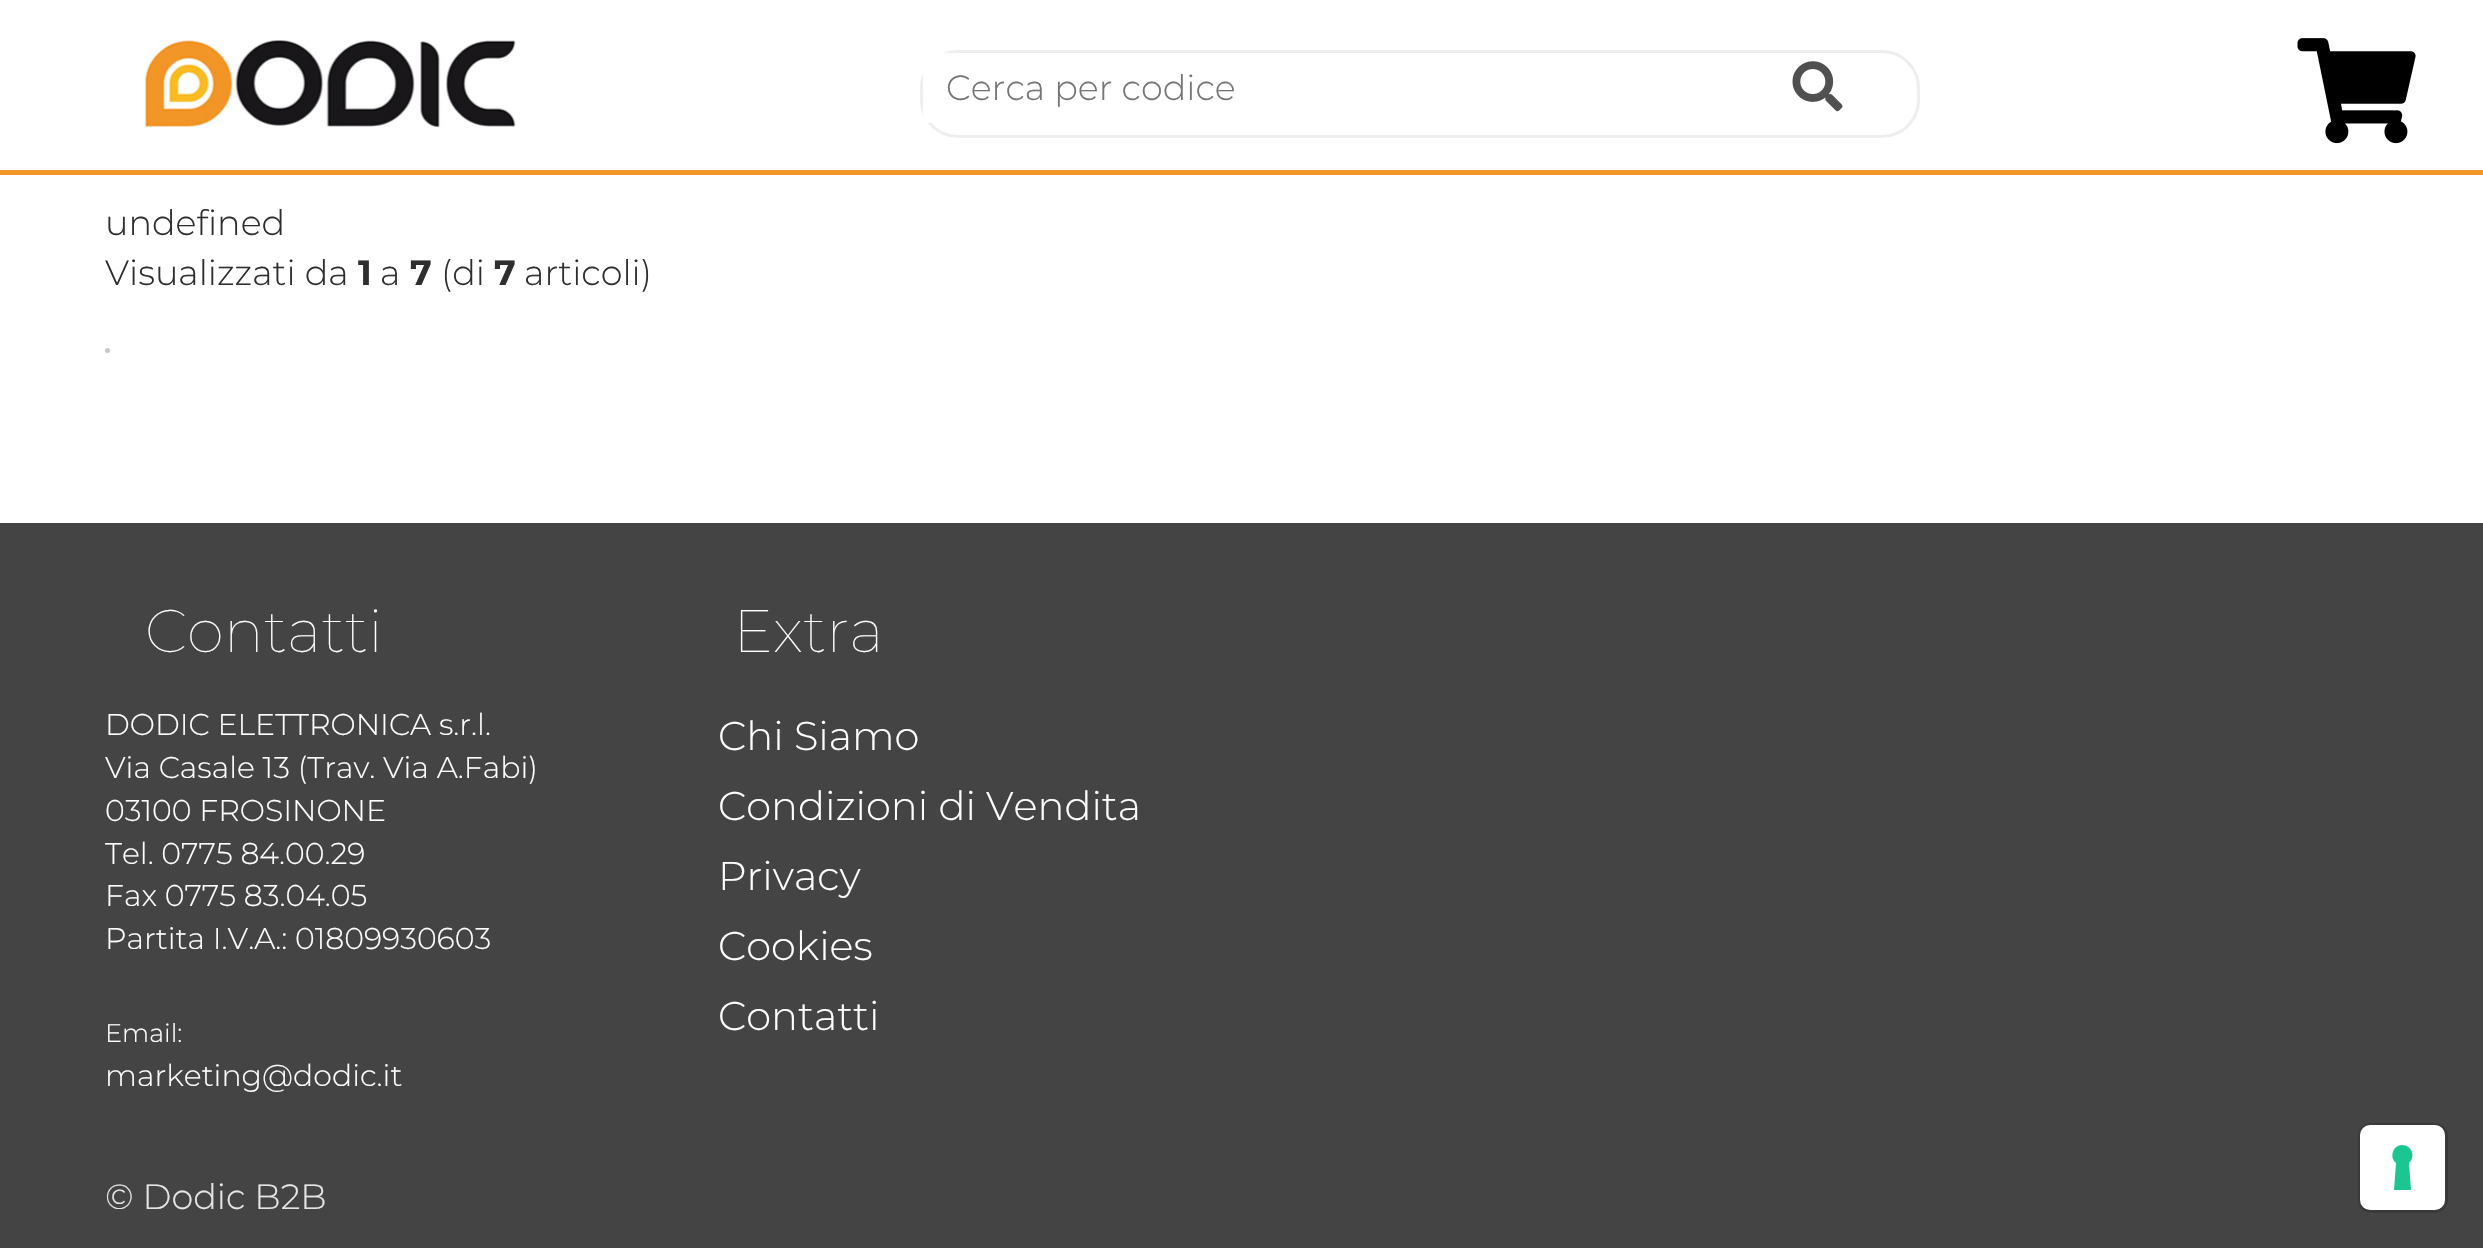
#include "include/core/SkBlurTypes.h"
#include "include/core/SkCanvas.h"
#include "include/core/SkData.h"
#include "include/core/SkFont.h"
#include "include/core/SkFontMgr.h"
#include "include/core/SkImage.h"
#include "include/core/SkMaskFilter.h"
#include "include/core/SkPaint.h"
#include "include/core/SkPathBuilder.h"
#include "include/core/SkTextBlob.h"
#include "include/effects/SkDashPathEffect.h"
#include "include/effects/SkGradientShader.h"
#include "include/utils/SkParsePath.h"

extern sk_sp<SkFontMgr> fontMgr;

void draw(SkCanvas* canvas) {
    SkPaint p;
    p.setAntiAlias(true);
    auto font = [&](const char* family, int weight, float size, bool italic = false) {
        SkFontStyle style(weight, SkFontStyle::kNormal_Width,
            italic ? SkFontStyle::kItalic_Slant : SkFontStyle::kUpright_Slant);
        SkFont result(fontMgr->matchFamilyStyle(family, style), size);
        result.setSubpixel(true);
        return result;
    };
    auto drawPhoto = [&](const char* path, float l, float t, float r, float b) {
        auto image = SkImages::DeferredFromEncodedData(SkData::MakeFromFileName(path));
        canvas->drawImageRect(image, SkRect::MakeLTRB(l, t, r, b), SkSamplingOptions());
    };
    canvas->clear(0xFFFFFFFF);
    p.setColor(0xFFF29627);
    canvas->drawRect(SkRect::MakeLTRB(0, 170, 2483, 175), p);
    drawPhoto("media/1.png", 144, 40, 516, 129);
    p.setStyle(SkPaint::kStroke_Style);
    p.setStrokeWidth(3);
    p.setColor(0xFFEEEEEE);
    canvas->drawRoundRect(SkRect::MakeLTRB(921.5f, 51.5f, 1918.5f, 136.5f), 36.5f, 36.5f, p);
    p.setStyle(SkPaint::kFill_Style);
    p.setColor(0xFFFFFFFF);
    canvas->drawRoundRect(SkRect::MakeLTRB(923, 53, 1718, 123), 8, 8, p);
    auto font1 = font("Montserrat", 300, 35);
    p.setColor(0xFF757575);
    canvas->drawString("Cerca per codice", 946, 100, font1, p);
    drawPhoto("media/2.png", 1792, 61, 1843, 112);
    drawPhoto("media/3.png", 2297, 38, 2416, 144);
    p.setColor(0xFF2E2E2E);
    canvas->drawString("undefined", 105, 235, font1, p);
    canvas->drawString("Visualizzati da", 105, 285, font1, p);
    auto font2 = font("Montserrat", 700, 35);
    canvas->drawString("1", 358, 285, font2, p);
    canvas->drawString("a", 380, 285, font1, p);
    canvas->drawString("7", 410, 285, font2, p);
    canvas->drawString("(di", 441, 285, font1, p);
    canvas->drawString("7", 494, 285, font2, p);
    canvas->drawString("articoli)", 524, 285, font1, p);
    p.setColor(0xFFC8C8C8);
    canvas->drawCircle(107.5f, 350.5f, 2.5f, p);
    p.setColor(0xFF444444);
    canvas->drawRect(SkRect::MakeLTRB(0, 523, 2483, 1248), p);
    auto font3 = font("Montserrat", 100, 60);
    p.setColor(0xFFFFFFFF);
    canvas->drawString("Contatti", 145, 652, font3, p);
    auto font4 = font("Montserrat", 300, 30);
    {
        const struct { const char* s; float x, y; } items[] = {
            {"DODIC ELETTRONICA s.r.l.", 105, 735},
            {"Via Casale 13 (Trav. Via A.Fabi)", 105, 778},
            {"03100 FROSINONE", 105, 821},
            {"Tel. 0775 84.00.29", 105, 864},
            {"Fax 0775 83.04.05", 105, 906},
            {"Partita I.V.A.: 01809930603", 105, 949},
        };
        for (auto [s, x, y] : items) {
            canvas->drawString(s, x, y, font4, p);
        }
    }
    auto font5 = font("Montserrat", 300, 25.5f);
    canvas->drawString("Email:", 105, 1042, font5, p);
    canvas->drawString("marketing@dodic.it", 105, 1086, font4, p);
    canvas->drawString("Extra", 733, 652, font3, p);
    auto font6 = font("Montserrat", 300, 40);
    {
        const struct { const char* s; float x, y; } items[] = {
            {"Chi Siamo", 718, 750},
            {"Condizioni di Vendita", 718, 820},
            {"Privacy", 718, 890},
            {"Cookies", 718, 960},
            {"Contatti", 718, 1030},
        };
        for (auto [s, x, y] : items) {
            canvas->drawString(s, x, y, font6, p);
        }
    }
    p.setColor(0xFFE6E6E6);
    canvas->drawString("© Dodic B2B", 105, 1209, font1, p);
    p.setStyle(SkPaint::kStroke_Style);
    p.setColor(0xFF3A3A3A);
    canvas->drawRoundRect(SkRect::MakeLTRB(2359.5f, 1124.5f, 2446.5f, 1211.5f), 11.5f, 11.5f, p);
    p.setStyle(SkPaint::kFill_Style);
    p.setColor(0xFFFFFFFF);
    canvas->drawRoundRect(SkRect::MakeLTRB(2360, 1125, 2445, 1210), 10, 10, p);
    p.setColor(0xFF1CC691);
    canvas->drawPath(SkPathBuilder(SkPathFillType::kEvenOdd).moveTo(2402, 1145).cubicTo(2412, 1145, 2416, 1157, 2409, 1163).lineTo(2411, 1190).lineTo(2394, 1190).lineTo(2396, 1163).cubicTo(2389, 1157, 2393, 1145, 2402, 1145).close().detach(), p);
}
